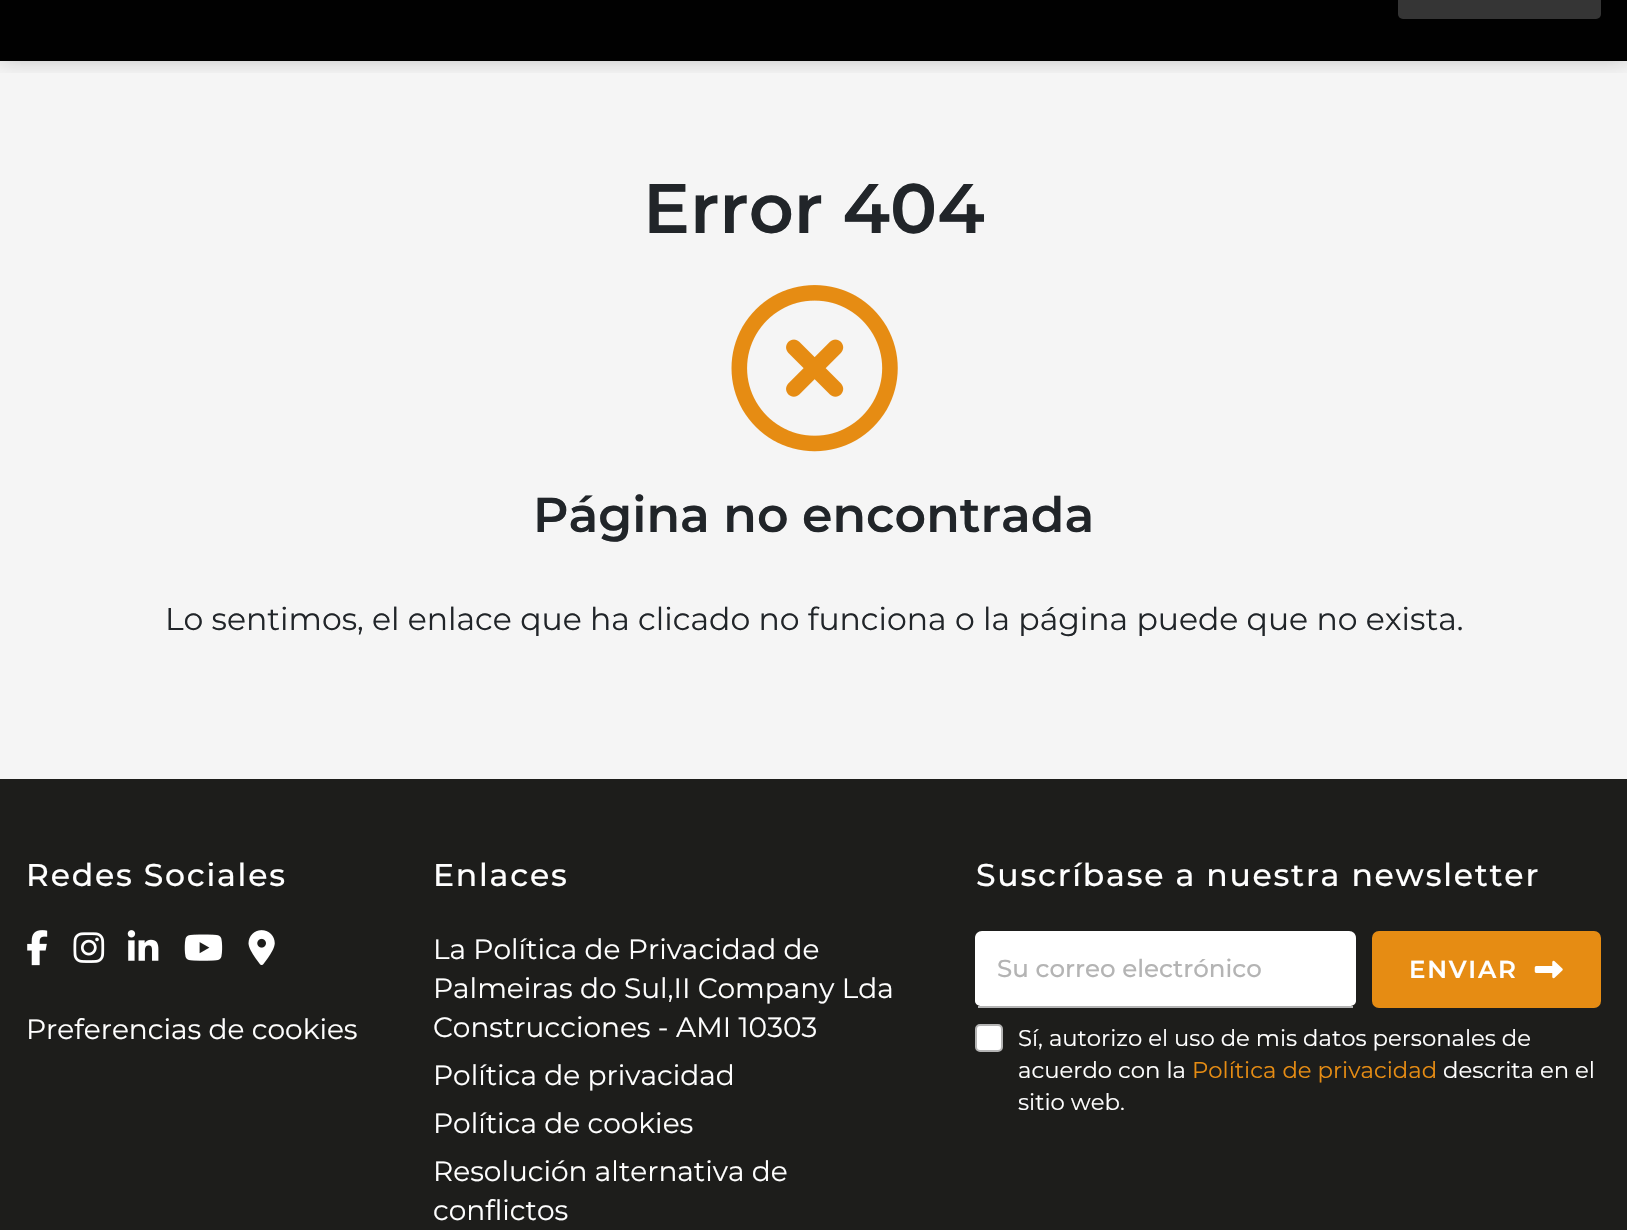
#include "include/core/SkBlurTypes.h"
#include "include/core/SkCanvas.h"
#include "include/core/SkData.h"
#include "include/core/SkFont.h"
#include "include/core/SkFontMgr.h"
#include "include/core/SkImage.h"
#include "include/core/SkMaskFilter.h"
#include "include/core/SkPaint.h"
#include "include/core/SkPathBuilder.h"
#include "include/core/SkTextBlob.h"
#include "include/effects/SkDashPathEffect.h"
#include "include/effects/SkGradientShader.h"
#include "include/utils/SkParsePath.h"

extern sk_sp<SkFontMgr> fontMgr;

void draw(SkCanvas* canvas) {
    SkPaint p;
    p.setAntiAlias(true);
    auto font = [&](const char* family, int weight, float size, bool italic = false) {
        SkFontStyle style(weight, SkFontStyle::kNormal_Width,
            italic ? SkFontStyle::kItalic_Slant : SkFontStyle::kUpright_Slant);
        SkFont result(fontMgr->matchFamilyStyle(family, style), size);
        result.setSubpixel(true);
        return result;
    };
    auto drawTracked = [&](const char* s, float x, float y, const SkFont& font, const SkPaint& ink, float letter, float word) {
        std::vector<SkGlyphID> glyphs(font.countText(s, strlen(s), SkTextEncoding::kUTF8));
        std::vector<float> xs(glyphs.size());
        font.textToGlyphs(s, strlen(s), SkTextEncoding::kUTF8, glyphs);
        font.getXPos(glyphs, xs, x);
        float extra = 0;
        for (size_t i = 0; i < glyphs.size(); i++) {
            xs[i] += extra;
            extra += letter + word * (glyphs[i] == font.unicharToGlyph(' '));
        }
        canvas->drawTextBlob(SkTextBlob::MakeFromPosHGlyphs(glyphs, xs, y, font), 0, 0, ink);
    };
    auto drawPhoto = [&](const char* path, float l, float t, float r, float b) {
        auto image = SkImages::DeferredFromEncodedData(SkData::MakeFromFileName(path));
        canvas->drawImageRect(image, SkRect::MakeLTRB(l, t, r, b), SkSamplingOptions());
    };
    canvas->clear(0xFFF5F5F5);
    p.setColor(0xFF010101);
    canvas->drawRect(SkRect::MakeLTRB(0, 0, 1627, 61), p);
    canvas->save();
    canvas->clipRect(SkRect::MakeLTRB(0, 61, 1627, 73));
    p.setColor(0x42000000);
    p.setMaskFilter(SkMaskFilter::MakeBlur(kNormal_SkBlurStyle, 10.5f));
    canvas->drawRect(SkRect::MakeLTRB(0, -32, 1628, 58), p);
    p.setMaskFilter(nullptr);
    canvas->restore();
    p.setColor(0xFF353535);
    canvas->drawRoundRect(SkRect::MakeLTRB(1398, -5, 1601, 19), 5, 5, p);
    auto font1 = font("Montserrat", 600, 70);
    p.setColor(0xFF212529);
    canvas->drawString("Error 404", 643, 233, font1, p);
    drawPhoto("media/1.png", 731, 285, 898, 452);
    auto font2 = font("Montserrat", 600, 49);
    canvas->drawString("Página no encontrada", 533, 532, font2, p);
    auto font3 = font("Montserrat", 400, 31.5f);
    canvas->drawString("Lo sentimos, el enlace que ha clicado no funciona o la página puede que no exista.", 165, 630, font3, p);
    p.setColor(0xFF1D1D1B);
    canvas->drawRect(SkRect::MakeLTRB(0, 779, 1627, 1230), p);
    auto font4 = font("Montserrat", 500, 31.5f);
    p.setColor(0xFFFFFFFF);
    drawTracked("Redes Sociales", 26, 886, font4, p, 1.75f, 0);
    drawPhoto("media/2.png", 27, 930, 48, 966);
    drawPhoto("media/3.png", 73, 932, 105, 963);
    drawPhoto("media/4.png", 127, 930, 159, 961);
    drawPhoto("media/5.png", 184, 934, 223, 961);
    drawPhoto("media/6.png", 248, 930, 275, 965);
    auto font5 = font("Montserrat", 400, 28);
    canvas->drawString("Preferencias de cookies", 26, 1039, font5, p);
    drawTracked("Enlaces", 433, 886, font4, p, 1.75f, 0);
    {
        const struct { const char* s; float x, y; } items[] = {
            {"La Política de Privacidad de", 433, 959},
            {"Palmeiras do Sul,II Company Lda", 433, 998},
            {"Construcciones - AMI 10303", 433, 1037},
            {"Política de privacidad", 433, 1085},
            {"Política de cookies", 433, 1133},
            {"Resolución alternativa de", 433, 1181},
            {"conflictos", 433, 1220},
        };
        for (auto [s, x, y] : items) {
            canvas->drawString(s, x, y, font5, p);
        }
    }
    drawTracked("Suscríbase a nuestra newsletter", 976, 886, font4, p, 1.75f, 0);
    canvas->drawPath(SkPathBuilder().moveTo(982, 931).lineTo(1349, 931).cubicTo(1353, 931, 1356, 934, 1356, 938).lineTo(1356, 1001).cubicTo(1356, 1004, 1353, 1006, 1349, 1006).lineTo(982, 1006).cubicTo(978, 1006, 975, 1004, 975, 1001).lineTo(975, 938).cubicTo(975, 934, 978, 931, 982, 931).close().detach(), p);
    p.setColor(0xFFB4B4B4);
    canvas->drawRect(SkRect::MakeLTRB(978, 1006, 1353, 1008), p);
    auto font6 = font("Montserrat", 500, 24.5f);
    canvas->drawString("Su correo electrónico", 997, 977, font6, p);
    p.setColor(0xFFE68C13);
    canvas->drawRoundRect(SkRect::MakeLTRB(1373, 932, 1600, 1007), 6, 6, p);
    p.setStyle(SkPaint::kStroke_Style);
    p.setStrokeWidth(2);
    canvas->drawRoundRect(SkRect::MakeLTRB(1373, 932, 1600, 1007), 6, 6, p);
    auto font7 = font("Montserrat", 600, 24.5f);
    p.setStyle(SkPaint::kFill_Style);
    p.setColor(0xFFFFFFFF);
    drawTracked("ENVIAR", 1409, 978, font7, p, 1.75f, 0);
    drawPhoto("media/7.png", 1534, 960, 1563, 979);
    canvas->drawRoundRect(SkRect::MakeLTRB(976, 1025, 1002, 1051), 4, 4, p);
    p.setStyle(SkPaint::kStroke_Style);
    p.setColor(0xFFB4B4B4);
    canvas->drawRoundRect(SkRect::MakeLTRB(976, 1025, 1002, 1051), 4, 4, p);
    auto font8 = font("Montserrat", 400, 22.75f);
    p.setStyle(SkPaint::kFill_Style);
    p.setColor(0xFFFFFFFF);
    canvas->drawString("Sí, autorizo el uso de mis datos personales de", 1018, 1046, font8, p);
    canvas->drawString("acuerdo con la", 1018, 1078, font8, p);
    p.setColor(0xFFE68C13);
    canvas->drawString("Política de privacidad", 1192, 1078, font8, p);
    p.setColor(0xFFFFFFFF);
    canvas->drawString("descrita en el", 1443, 1078, font8, p);
    canvas->drawString("sitio web.", 1018, 1110, font8, p);
}
